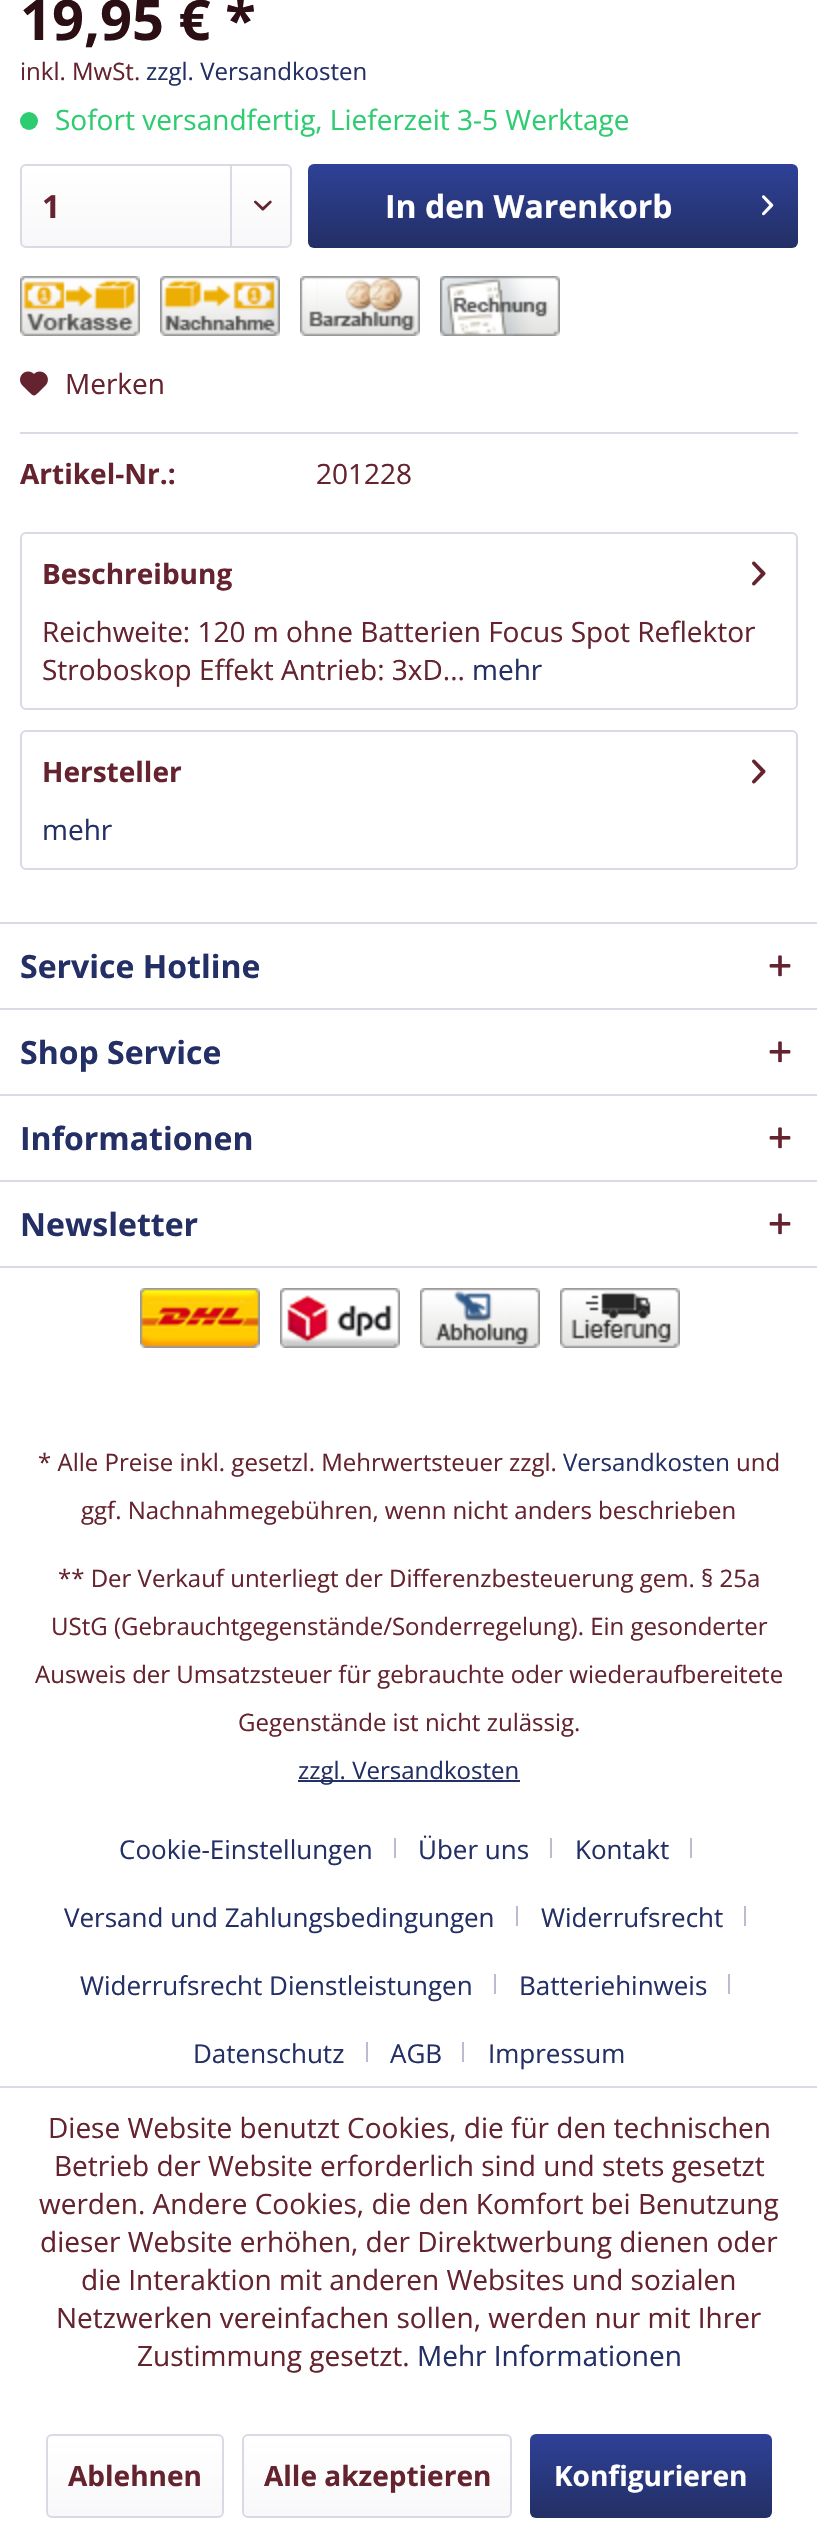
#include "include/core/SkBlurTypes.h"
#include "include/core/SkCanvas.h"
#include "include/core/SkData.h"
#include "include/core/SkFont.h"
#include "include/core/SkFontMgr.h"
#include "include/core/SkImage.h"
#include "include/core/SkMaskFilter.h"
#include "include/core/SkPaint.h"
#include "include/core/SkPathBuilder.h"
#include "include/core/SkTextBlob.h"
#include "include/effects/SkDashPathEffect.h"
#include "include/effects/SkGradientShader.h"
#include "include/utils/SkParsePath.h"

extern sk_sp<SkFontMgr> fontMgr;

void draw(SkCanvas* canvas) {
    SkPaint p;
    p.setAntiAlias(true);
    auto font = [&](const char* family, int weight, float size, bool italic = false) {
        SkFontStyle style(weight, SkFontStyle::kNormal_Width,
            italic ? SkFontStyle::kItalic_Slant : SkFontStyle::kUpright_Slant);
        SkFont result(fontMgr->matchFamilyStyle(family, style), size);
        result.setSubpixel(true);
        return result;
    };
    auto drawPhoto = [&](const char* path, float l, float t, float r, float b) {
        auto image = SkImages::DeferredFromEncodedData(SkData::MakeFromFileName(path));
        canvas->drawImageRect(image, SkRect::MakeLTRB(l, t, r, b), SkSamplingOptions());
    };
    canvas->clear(0xFFFFFFFF);
    auto font1 = font("Open Sans", 700, 56);
    p.setColor(0xFF2C0F15);
    canvas->drawString("19,95 € *", 20, 40, font1, p);
    auto font2 = font("Open Sans", 400, 24);
    p.setColor(0xFF65232F);
    canvas->drawString("inkl. MwSt.", 20, 80, font2, p);
    p.setColor(0xFF232F65);
    canvas->drawString("zzgl. Versandkosten", 146, 80, font2, p);
    p.setColor(0xFF2ECC71);
    canvas->drawCircle(29, 121, 9, p);
    auto font3 = font("Open Sans", 400, 28);
    canvas->drawString("Sofort versandfertig, Lieferzeit 3-5 Werktage", 55, 130, font3, p);
    {
        const SkColor colors[] = {0xFFFFFFFF, 0xFFF8F8FA};
        const float stops[] = {0, 1};
        const SkPoint ends[] = {{156, 166}, {156, 246}};
        p.setShader(SkGradientShader::MakeLinear(ends, colors, stops, 2, SkTileMode::kClamp));
        p.setAlpha(255);
    }
    canvas->drawRoundRect(SkRect::MakeLTRB(22, 166, 290, 246), 4, 4, p);
    p.setStyle(SkPaint::kStroke_Style);
    p.setStrokeWidth(2);
    p.setShader(nullptr);
    p.setColor(0xFFDADAE5);
    canvas->drawRoundRect(SkRect::MakeLTRB(21, 165, 291, 247), 5, 5, p);
    auto font4 = font("Open Sans", 700, 32);
    p.setStyle(SkPaint::kFill_Style);
    p.setColor(0xFF65232F);
    canvas->drawString("1", 42, 218, font4, p);
    p.setColor(0xFFDADAE5);
    canvas->drawRect(SkRect::MakeLTRB(230, 166, 232, 246), p);
    drawPhoto("media/1.png", 254, 200, 272, 211);
    {
        const SkColor colors[] = {0xFF2E4197, 0xFF232F65};
        const float stops[] = {0, 1};
        const SkPoint ends[] = {{553, 164}, {553, 248}};
        p.setShader(SkGradientShader::MakeLinear(ends, colors, stops, 2, SkTileMode::kClamp));
        p.setAlpha(255);
    }
    canvas->drawRoundRect(SkRect::MakeLTRB(308, 164, 798, 248), 6, 6, p);
    p.setShader(nullptr);
    p.setColor(0xFFFFFFFF);
    canvas->drawString("In den Warenkorb", 385, 218, font4, p);
    drawPhoto("media/2.png", 762, 195, 774, 216);
    drawPhoto("media/3.png", 20, 276, 140, 336);
    drawPhoto("media/4.png", 160, 276, 280, 336);
    drawPhoto("media/5.png", 300, 276, 420, 336);
    drawPhoto("media/6.png", 440, 276, 560, 336);
    p.setColor(0xFFDADAE5);
    canvas->drawRect(SkRect::MakeLTRB(20, 432, 798, 434), p);
    drawPhoto("media/7.png", 20, 371, 48, 396);
    p.setColor(0xFF65232F);
    canvas->drawString("Merken", 65, 394, font3, p);
    auto font5 = font("Open Sans", 700, 28);
    canvas->drawString("Artikel-Nr.:", 20, 484, font5, p);
    canvas->drawString("201228", 316, 484, font3, p);
    p.setStyle(SkPaint::kStroke_Style);
    p.setColor(0xFFDADAE5);
    canvas->drawRoundRect(SkRect::MakeLTRB(21, 533, 797, 709), 5, 5, p);
    p.setStyle(SkPaint::kFill_Style);
    p.setColor(0xFF65232F);
    canvas->drawString("Beschreibung", 42, 584, font5, p);
    drawPhoto("media/8.png", 752, 561, 766, 586);
    canvas->drawString("Reichweite: 120 m ohne Batterien Focus Spot Reflektor", 42, 642, font3, p);
    canvas->drawString("Stroboskop Effekt Antrieb: 3xD...", 42, 680, font3, p);
    p.setColor(0xFF232F65);
    canvas->drawString("mehr", 472, 680, font3, p);
    p.setStyle(SkPaint::kStroke_Style);
    p.setColor(0xFFDADAE5);
    canvas->drawRoundRect(SkRect::MakeLTRB(21, 731, 797, 869), 5, 5, p);
    p.setStyle(SkPaint::kFill_Style);
    p.setColor(0xFF65232F);
    canvas->drawString("Hersteller", 42, 782, font5, p);
    drawPhoto("media/8.png", 752, 759, 766, 784);
    p.setColor(0xFF232F65);
    canvas->drawString("mehr", 42, 840, font3, p);
    p.setColor(0xFFDADAE5);
    canvas->drawRect(SkRect::MakeLTRB(0, 922, 817, 924), p);
    p.setColor(0xFF232F65);
    canvas->drawString("Service Hotline", 20, 978, font4, p);
    drawPhoto("media/9.png", 769, 955, 791, 977);
    p.setColor(0xFFDADAE5);
    canvas->drawRect(SkRect::MakeLTRB(0, 1008, 817, 1010), p);
    p.setColor(0xFF232F65);
    canvas->drawString("Shop Service", 20, 1064, font4, p);
    drawPhoto("media/9.png", 769, 1041, 791, 1063);
    p.setColor(0xFFDADAE5);
    canvas->drawRect(SkRect::MakeLTRB(0, 1094, 817, 1096), p);
    p.setColor(0xFF232F65);
    canvas->drawString("Informationen", 20, 1150, font4, p);
    drawPhoto("media/9.png", 769, 1127, 791, 1149);
    p.setColor(0xFFDADAE5);
    canvas->drawRect(SkRect::MakeLTRB(0, 1180, 817, 1182), p);
    canvas->drawRect(SkRect::MakeLTRB(0, 1266, 817, 1268), p);
    p.setColor(0xFF232F65);
    canvas->drawString("Newsletter", 20, 1236, font4, p);
    drawPhoto("media/9.png", 769, 1213, 791, 1235);
    drawPhoto("media/10.png", 140, 1288, 260, 1348);
    drawPhoto("media/11.png", 280, 1288, 400, 1348);
    drawPhoto("media/12.png", 420, 1288, 540, 1348);
    drawPhoto("media/13.png", 560, 1288, 680, 1348);
    p.setColor(0xFF65232F);
    canvas->drawString("* Alle Preise inkl. gesetzl. Mehrwertsteuer zzgl.", 38, 1471, font2, p);
    p.setColor(0xFF232F65);
    canvas->drawString("Versandkosten", 563, 1471, font2, p);
    p.setColor(0xFF65232F);
    {
        const struct { const char* s; float x, y; } items[] = {
            {"und", 736, 1471},
            {"ggf. Nachnahmegebühren, wenn nicht anders beschrieben", 81, 1519},
            {"** Der Verkauf unterliegt der Differenzbesteuerung gem. § 25a", 58, 1587},
            {"UStG (Gebrauchtgegenstände/Sonderregelung). Ein gesonderter", 51, 1635},
            {"Ausweis der Umsatzsteuer für gebrauchte oder wiederaufbereitete", 35, 1683},
            {"Gegenstände ist nicht zulässig.", 238, 1731},
        };
        for (auto [s, x, y] : items) {
            canvas->drawString(s, x, y, font2, p);
        }
    }
    p.setColor(0xFF232F65);
    canvas->drawRect(SkRect::MakeLTRB(298, 1780, 520, 1782), p);
    canvas->drawString("zzgl. Versandkosten", 298, 1779, font2, p);
    auto font6 = font("Open Sans", 400, 26);
    canvas->drawString("Cookie-Einstellungen", 119, 1859, font6, p);
    p.setColor(0xFFBCBCD0);
    canvas->drawRect(SkRect::MakeLTRB(394, 1838, 396, 1858), p);
    p.setColor(0xFF232F65);
    canvas->drawString("Über uns", 418, 1859, font6, p);
    p.setColor(0xFFBCBCD0);
    canvas->drawRect(SkRect::MakeLTRB(550, 1838, 552, 1858), p);
    p.setColor(0xFF232F65);
    canvas->drawString("Kontakt", 575, 1859, font6, p);
    p.setColor(0xFFBCBCD0);
    canvas->drawRect(SkRect::MakeLTRB(690, 1838, 692, 1858), p);
    p.setColor(0xFF232F65);
    canvas->drawString("Versand und Zahlungsbedingungen", 64, 1927, font6, p);
    p.setColor(0xFFBCBCD0);
    canvas->drawRect(SkRect::MakeLTRB(516, 1906, 518, 1926), p);
    p.setColor(0xFF232F65);
    canvas->drawString("Widerrufsrecht", 541, 1927, font6, p);
    p.setColor(0xFFBCBCD0);
    canvas->drawRect(SkRect::MakeLTRB(744, 1906, 746, 1926), p);
    p.setColor(0xFF232F65);
    canvas->drawString("Widerrufsrecht Dienstleistungen", 80, 1995, font6, p);
    p.setColor(0xFFBCBCD0);
    canvas->drawRect(SkRect::MakeLTRB(494, 1974, 496, 1994), p);
    p.setColor(0xFF232F65);
    canvas->drawString("Batteriehinweis", 519, 1995, font6, p);
    p.setColor(0xFFBCBCD0);
    canvas->drawRect(SkRect::MakeLTRB(728, 1974, 730, 1994), p);
    p.setColor(0xFF232F65);
    canvas->drawString("Datenschutz", 193, 2063, font6, p);
    p.setColor(0xFFBCBCD0);
    canvas->drawRect(SkRect::MakeLTRB(366, 2042, 368, 2062), p);
    p.setColor(0xFF232F65);
    canvas->drawString("AGB", 390, 2063, font6, p);
    p.setColor(0xFFBCBCD0);
    canvas->drawRect(SkRect::MakeLTRB(462, 2042, 464, 2062), p);
    p.setColor(0xFF232F65);
    canvas->drawString("Impressum", 488, 2063, font6, p);
    p.setColor(0xFFDADAE5);
    canvas->drawRect(SkRect::MakeLTRB(0, 2086, 817, 2088), p);
    p.setColor(0xFF65232F);
    {
        const struct { const char* s; float x, y; } items[] = {
            {"Diese Website benutzt Cookies, die für den technischen", 48, 2138},
            {"Betrieb der Website erforderlich sind und stets gesetzt", 54, 2176},
            {"werden. Andere Cookies, die den Komfort bei Benutzung", 39, 2214},
            {"dieser Website erhöhen, der Direktwerbung dienen oder", 40, 2252},
            {"die Interaktion mit anderen Websites und sozialen", 81, 2290},
            {"Netzwerken vereinfachen sollen, werden nur mit Ihrer", 56, 2328},
            {"Zustimmung gesetzt.", 137, 2366},
        };
        for (auto [s, x, y] : items) {
            canvas->drawString(s, x, y, font3, p);
        }
    }
    p.setColor(0xFF232F65);
    canvas->drawString("Mehr Informationen", 417, 2366, font3, p);
    {
        const SkColor colors[] = {0xFFFFFFFF, 0xFFF8F8FA};
        const float stops[] = {0, 1};
        const SkPoint ends[] = {{135, 2436}, {135, 2516}};
        p.setShader(SkGradientShader::MakeLinear(ends, colors, stops, 2, SkTileMode::kClamp));
        p.setAlpha(255);
    }
    canvas->drawRoundRect(SkRect::MakeLTRB(48, 2436, 222, 2516), 4, 4, p);
    p.setStyle(SkPaint::kStroke_Style);
    p.setShader(nullptr);
    p.setColor(0xFFDADAE5);
    canvas->drawRoundRect(SkRect::MakeLTRB(47, 2435, 223, 2517), 5, 5, p);
    p.setStyle(SkPaint::kFill_Style);
    p.setColor(0xFF65232F);
    canvas->drawString("Ablehnen", 68, 2486, font5, p);
    {
        const SkColor colors[] = {0xFFFFFFFF, 0xFFF8F8FA};
        const float stops[] = {0, 1};
        const SkPoint ends[] = {{377, 2436}, {377, 2516}};
        p.setShader(SkGradientShader::MakeLinear(ends, colors, stops, 2, SkTileMode::kClamp));
        p.setAlpha(255);
    }
    canvas->drawRoundRect(SkRect::MakeLTRB(244, 2436, 510, 2516), 4, 4, p);
    p.setStyle(SkPaint::kStroke_Style);
    p.setShader(nullptr);
    p.setColor(0xFFDADAE5);
    canvas->drawRoundRect(SkRect::MakeLTRB(243, 2435, 511, 2517), 5, 5, p);
    p.setStyle(SkPaint::kFill_Style);
    p.setColor(0xFF65232F);
    canvas->drawString("Alle akzeptieren", 264, 2486, font5, p);
    {
        const SkColor colors[] = {0xFF2E4197, 0xFF232F65};
        const float stops[] = {0, 1};
        const SkPoint ends[] = {{651, 2434}, {651, 2518}};
        p.setShader(SkGradientShader::MakeLinear(ends, colors, stops, 2, SkTileMode::kClamp));
        p.setAlpha(255);
    }
    canvas->drawRoundRect(SkRect::MakeLTRB(530, 2434, 772, 2518), 6, 6, p);
    p.setShader(nullptr);
    p.setColor(0xFFFFFFFF);
    canvas->drawString("Konfigurieren", 554, 2486, font5, p);
}
